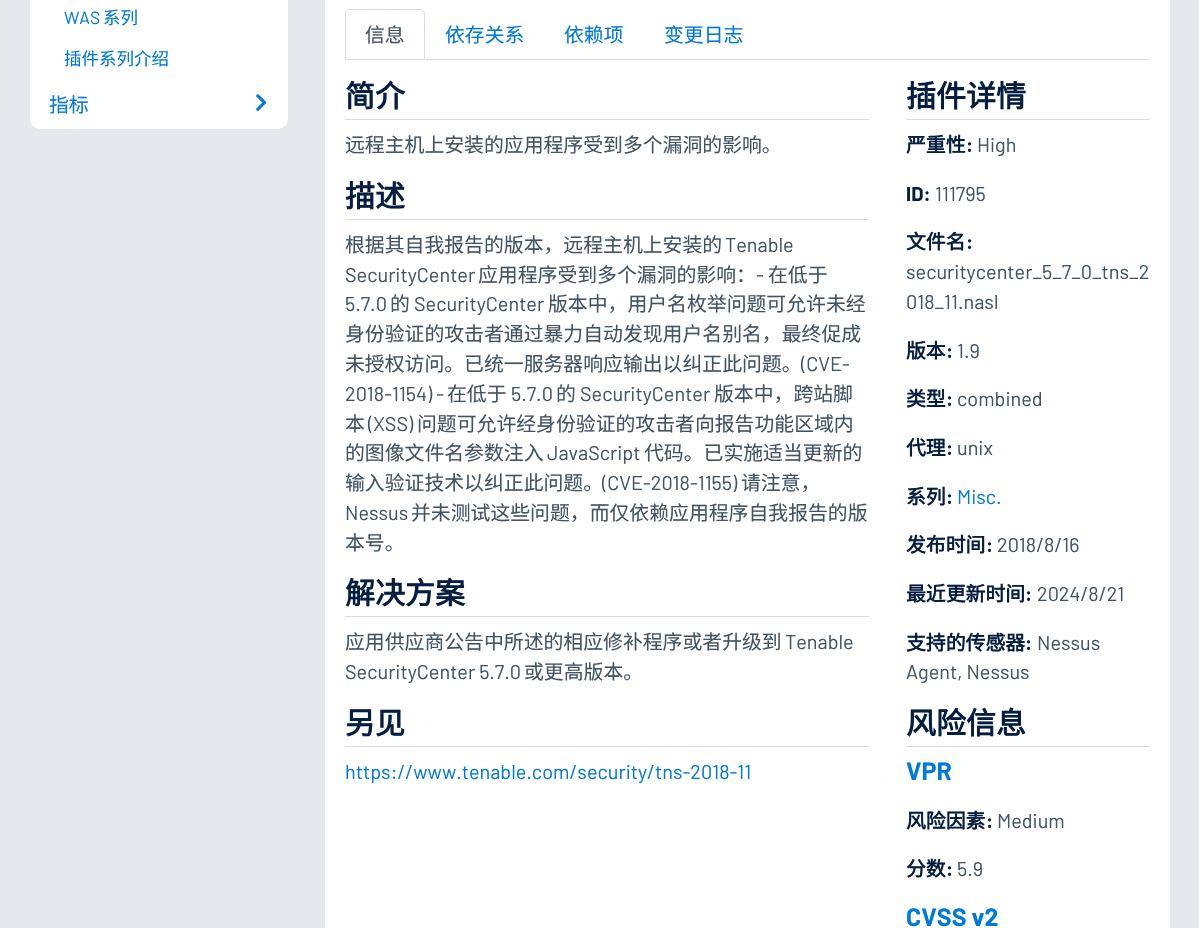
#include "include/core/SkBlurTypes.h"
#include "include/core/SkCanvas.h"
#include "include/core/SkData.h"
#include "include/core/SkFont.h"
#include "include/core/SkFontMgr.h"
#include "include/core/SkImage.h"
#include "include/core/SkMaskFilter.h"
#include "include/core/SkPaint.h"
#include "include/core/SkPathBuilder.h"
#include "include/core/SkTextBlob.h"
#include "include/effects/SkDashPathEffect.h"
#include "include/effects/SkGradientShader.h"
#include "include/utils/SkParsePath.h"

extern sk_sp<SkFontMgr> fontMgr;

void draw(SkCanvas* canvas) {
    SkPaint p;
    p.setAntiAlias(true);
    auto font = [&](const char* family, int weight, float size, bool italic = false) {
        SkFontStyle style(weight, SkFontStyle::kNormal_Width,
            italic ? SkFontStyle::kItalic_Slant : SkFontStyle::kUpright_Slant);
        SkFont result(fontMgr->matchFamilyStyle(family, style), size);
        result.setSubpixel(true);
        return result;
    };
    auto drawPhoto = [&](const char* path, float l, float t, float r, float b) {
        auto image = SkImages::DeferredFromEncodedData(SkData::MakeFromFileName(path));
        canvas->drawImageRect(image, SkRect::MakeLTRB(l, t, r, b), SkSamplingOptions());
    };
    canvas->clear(0xFFE5E9ED);
    p.setColor(0xFFFFFFFF);
    canvas->drawRoundRect(SkRect::MakeLTRB(30, -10, 288, 129), 10, 10, p);
    auto font1 = font("Barlow", 400, 17.5f);
    p.setColor(0xFF0079DD);
    canvas->drawString("WAS", 64, 24, font1, p);
    auto font2 = font("Noto Sans CJK SC", 400, 17.5f);
    canvas->drawString("系列", 103, 24, font2, p);
    canvas->drawString("插件系列介绍", 64, 65, font2, p);
    auto font3 = font("Noto Sans CJK SC", 400, 19.85f);
    canvas->drawString("指标", 49, 112, font3, p);
    drawPhoto("media/1.png", 256, 94, 267, 111);
    p.setColor(0xFFFFFFFF);
    canvas->drawRect(SkRect::MakeLTRB(325, 0, 1170, 928), p);
    p.setColor(0xFFD9DBE0);
    canvas->drawRect(SkRect::MakeLTRB(425, 59, 1150, 60), p);
    p.setStyle(SkPaint::kStroke_Style);
    p.setStrokeWidth(1);
    canvas->drawPath(SkPathBuilder().moveTo(350, 9.5f).lineTo(420, 9.5f).cubicTo(422.5f, 9.5f, 424.5f, 11.5f, 424.5f, 14).lineTo(424.5f, 59.5f).lineTo(345.5f, 59.5f).lineTo(345.5f, 14).cubicTo(345.5f, 11.5f, 347.5f, 9.5f, 350, 9.5f).close().detach(), p);
    p.setStyle(SkPaint::kFill_Style);
    p.setColor(0xFF415465);
    canvas->drawString("信息", 365, 42, font3, p);
    p.setColor(0xFF0079DD);
    {
        const struct { const char* s; float x, y; } items[] = {
            {"依存关系", 445, 42},
            {"依赖项", 564, 42},
            {"变更日志", 664, 42},
        };
        for (auto [s, x, y] : items) {
            canvas->drawString(s, x, y, font3, p);
        }
    }
    p.setColor(0xFFD9DBE0);
    canvas->drawRect(SkRect::MakeLTRB(345, 119, 869, 120), p);
    auto font4 = font("Noto Sans CJK SC", 700, 30);
    p.setColor(0xFF041E42);
    canvas->drawString("简介", 345, 107, font4, p);
    p.setColor(0xFF415465);
    canvas->drawString("远程主机上安装的应用程序受到多个漏洞的影响。", 345, 152, font3, p);
    p.setColor(0xFFD9DBE0);
    canvas->drawRect(SkRect::MakeLTRB(345, 219, 869, 220), p);
    p.setColor(0xFF041E42);
    canvas->drawString("描述", 345, 207, font4, p);
    p.setColor(0xFF415465);
    canvas->drawString("根据其自我报告的版本，远程主机上安装的", 345, 252, font3, p);
    auto font5 = font("Barlow", 400, 19.85f);
    canvas->drawString("Tenable", 725, 252, font5, p);
    canvas->drawString("SecurityCenter", 345, 282, font5, p);
    canvas->drawString("应用程序受到多个漏洞的影响：", 478, 282, font3, p);
    canvas->drawString("-", 756, 282, font5, p);
    canvas->drawString("在低于", 768, 282, font3, p);
    canvas->drawString("5.7.0", 345, 311, font5, p);
    canvas->drawString("的", 390, 311, font3, p);
    canvas->drawString("SecurityCenter", 414, 311, font5, p);
    {
        const struct { const char* s; float x, y; } items[] = {
            {"版本中，用户名枚举问题可允许未经", 548, 311},
            {"身份验证的攻击者通过暴力自动发现用户名别名，最终促成", 345, 341},
            {"未授权访问。已统一服务器响应输出以纠正此问题。", 345, 371},
        };
        for (auto [s, x, y] : items) {
            canvas->drawString(s, x, y, font3, p);
        }
    }
    canvas->drawString("(CVE-", 801, 371, font5, p);
    canvas->drawString("2018-1154) -", 345, 401, font5, p);
    canvas->drawString("在低于", 447, 401, font3, p);
    canvas->drawString("5.7.0", 511, 401, font5, p);
    canvas->drawString("的", 556, 401, font3, p);
    canvas->drawString("SecurityCenter", 580, 401, font5, p);
    canvas->drawString("版本中，跨站脚", 714, 401, font3, p);
    canvas->drawString("本", 345, 431, font3, p);
    canvas->drawString("(XSS)", 368, 431, font5, p);
    canvas->drawString("问题可允许经身份验证的攻击者向报告功能区域内", 417, 431, font3, p);
    canvas->drawString("的图像文件名参数注入", 345, 460, font3, p);
    canvas->drawString("JavaScript", 547, 460, font5, p);
    canvas->drawString("代码。已实施适当更新的", 644, 460, font3, p);
    canvas->drawString("输入验证技术以纠正此问题。", 345, 490, font3, p);
    canvas->drawString("(CVE-2018-1155)", 602, 490, font5, p);
    canvas->drawString("请注意，", 741, 490, font3, p);
    canvas->drawString("Nessus", 345, 520, font5, p);
    canvas->drawString("并未测试这些问题，而仅依赖应用程序自我报告的版", 411, 520, font3, p);
    canvas->drawString("本号。", 345, 550, font3, p);
    p.setColor(0xFFD9DBE0);
    canvas->drawRect(SkRect::MakeLTRB(345, 616, 869, 617), p);
    p.setColor(0xFF041E42);
    canvas->drawString("解决方案", 345, 604, font4, p);
    p.setColor(0xFF415465);
    canvas->drawString("应用供应商公告中所述的相应修补程序或者升级到", 345, 649, font3, p);
    canvas->drawString("Tenable", 785, 649, font5, p);
    canvas->drawString("SecurityCenter 5.7.0", 345, 679, font5, p);
    canvas->drawString("或更高版本。", 524, 679, font3, p);
    p.setColor(0xFFD9DBE0);
    canvas->drawRect(SkRect::MakeLTRB(345, 746, 869, 747), p);
    p.setColor(0xFF041E42);
    canvas->drawString("另见", 345, 734, font4, p);
    p.setColor(0xFF0079DD);
    canvas->drawString("https://www.tenable.com/security/tns-2018-11", 345, 779, font5, p);
    p.setColor(0xFFD9DBE0);
    canvas->drawRect(SkRect::MakeLTRB(906, 119, 1150, 120), p);
    p.setColor(0xFF041E42);
    canvas->drawString("插件详情", 906, 107, font4, p);
    auto font6 = font("Noto Sans CJK SC", 700, 19.85f);
    canvas->drawString("严重性", 906, 152, font6, p);
    auto font7 = font("Barlow", 700, 19.85f);
    canvas->drawString(":", 966, 152, font7, p);
    p.setColor(0xFF415465);
    canvas->drawString("High", 977, 152, font5, p);
    p.setColor(0xFF041E42);
    canvas->drawString("ID:", 906, 201, font7, p);
    p.setColor(0xFF415465);
    canvas->drawString("111795", 935, 201, font5, p);
    p.setColor(0xFF041E42);
    canvas->drawString("文件名", 906, 249, font6, p);
    canvas->drawString(":", 966, 249, font7, p);
    p.setColor(0xFF415465);
    canvas->drawString("securitycenter_5_7_0_tns_2", 906, 279, font5, p);
    canvas->drawString("018_11.nasl", 906, 309, font5, p);
    p.setColor(0xFF041E42);
    canvas->drawString("版本", 906, 358, font6, p);
    canvas->drawString(":", 946, 358, font7, p);
    p.setColor(0xFF415465);
    canvas->drawString("1.9", 957, 358, font5, p);
    p.setColor(0xFF041E42);
    canvas->drawString("类型", 906, 406, font6, p);
    canvas->drawString(":", 946, 406, font7, p);
    p.setColor(0xFF415465);
    canvas->drawString("combined", 957, 406, font5, p);
    p.setColor(0xFF041E42);
    canvas->drawString("代理", 906, 455, font6, p);
    canvas->drawString(":", 946, 455, font7, p);
    p.setColor(0xFF415465);
    canvas->drawString("unix", 957, 455, font5, p);
    p.setColor(0xFF041E42);
    canvas->drawString("系列", 906, 504, font6, p);
    canvas->drawString(":", 946, 504, font7, p);
    p.setColor(0xFF0079DD);
    canvas->drawString("Misc.", 957, 504, font5, p);
    p.setColor(0xFF041E42);
    canvas->drawString("发布时间", 906, 552, font6, p);
    canvas->drawString(":", 986, 552, font7, p);
    p.setColor(0xFF415465);
    canvas->drawString("2018/8/16", 997, 552, font5, p);
    p.setColor(0xFF041E42);
    canvas->drawString("最近更新时间", 906, 601, font6, p);
    canvas->drawString(":", 1025, 601, font7, p);
    p.setColor(0xFF415465);
    canvas->drawString("2024/8/21", 1037, 601, font5, p);
    p.setColor(0xFF041E42);
    canvas->drawString("支持的传感器", 906, 650, font6, p);
    canvas->drawString(":", 1025, 650, font7, p);
    p.setColor(0xFF415465);
    canvas->drawString("Nessus", 1037, 650, font5, p);
    canvas->drawString("Agent, Nessus", 906, 679, font5, p);
    p.setColor(0xFFD9DBE0);
    canvas->drawRect(SkRect::MakeLTRB(906, 746, 1150, 747), p);
    p.setColor(0xFF041E42);
    canvas->drawString("风险信息", 906, 734, font4, p);
    auto font8 = font("Barlow", 700, 25);
    p.setColor(0xFF0079DD);
    canvas->drawString("VPR", 906, 780, font8, p);
    p.setColor(0xFF041E42);
    canvas->drawString("风险因素", 906, 828, font6, p);
    canvas->drawString(":", 986, 828, font7, p);
    p.setColor(0xFF415465);
    canvas->drawString("Medium", 997, 828, font5, p);
    p.setColor(0xFF041E42);
    canvas->drawString("分数", 906, 876, font6, p);
    canvas->drawString(":", 946, 876, font7, p);
    p.setColor(0xFF415465);
    canvas->drawString("5.9", 957, 876, font5, p);
    p.setColor(0xFF0079DD);
    canvas->drawString("CVSS v2", 906, 926, font8, p);
}
